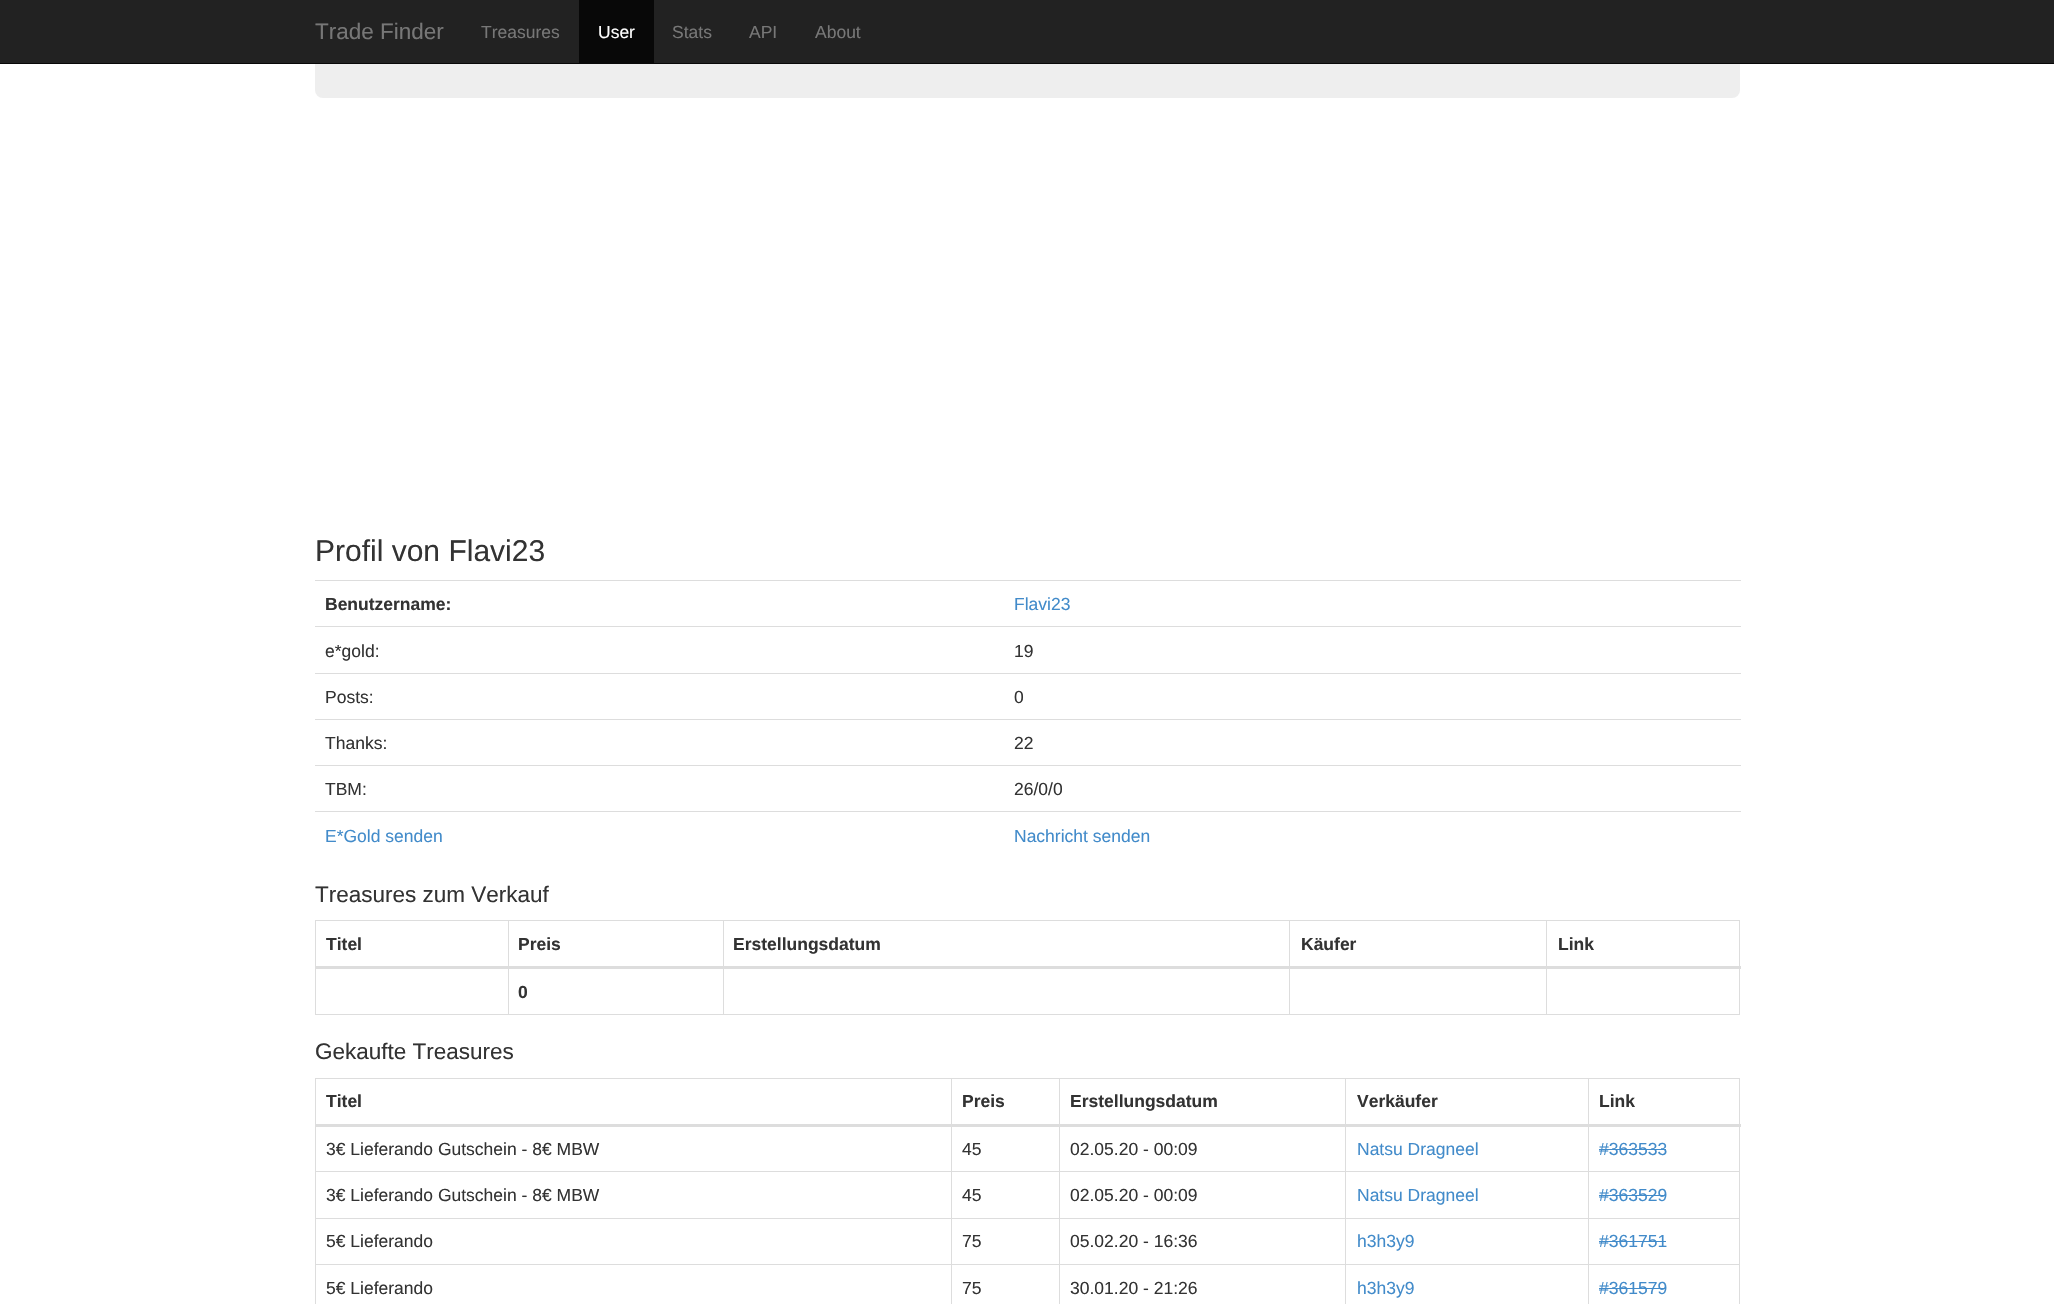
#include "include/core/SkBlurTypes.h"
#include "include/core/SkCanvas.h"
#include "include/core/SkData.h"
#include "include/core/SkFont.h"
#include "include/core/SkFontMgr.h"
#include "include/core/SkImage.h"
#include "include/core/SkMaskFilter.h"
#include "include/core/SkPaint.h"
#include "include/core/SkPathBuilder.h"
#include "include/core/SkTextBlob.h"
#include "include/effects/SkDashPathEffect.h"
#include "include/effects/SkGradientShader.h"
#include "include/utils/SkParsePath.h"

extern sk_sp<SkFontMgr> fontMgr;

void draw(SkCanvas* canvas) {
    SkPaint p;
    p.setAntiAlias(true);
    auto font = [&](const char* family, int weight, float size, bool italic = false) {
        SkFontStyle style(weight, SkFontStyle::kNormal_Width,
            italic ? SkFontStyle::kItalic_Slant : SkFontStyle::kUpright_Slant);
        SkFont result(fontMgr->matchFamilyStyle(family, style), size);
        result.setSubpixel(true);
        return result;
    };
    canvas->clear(0xFFFFFFFF);
    p.setColor(0xFFEEEEEE);
    canvas->drawRoundRect(SkRect::MakeLTRB(315, -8, 1740, 98), 8, 8, p);
    p.setColor(0xFF222222);
    canvas->drawRect(SkRect::MakeLTRB(0, 0, 2054, 63), p);
    p.setColor(0xFF080808);
    canvas->drawRect(SkRect::MakeLTRB(0, 63, 2054, 64), p);
    auto font1 = font("Liberation Sans", 400, 22.5f);
    p.setColor(0xFF777777);
    canvas->drawString("Trade Finder", 315, 39, font1, p);
    auto font2 = font("Liberation Sans", 400, 17.5f);
    canvas->drawString("Treasures", 481, 38, font2, p);
    p.setColor(0xFF080808);
    canvas->drawRect(SkRect::MakeLTRB(579, 0, 654, 63), p);
    p.setColor(0xFFFFFFFF);
    canvas->drawString("User", 598, 38, font2, p);
    p.setColor(0xFF777777);
    {
        const struct { const char* s; float x, y; } items[] = {
            {"Stats", 672, 38},
            {"API", 749, 38},
            {"About", 815, 38},
        };
        for (auto [s, x, y] : items) {
            canvas->drawString(s, x, y, font2, p);
        }
    }
    auto font3 = font("Liberation Sans", 400, 30);
    p.setColor(0xFF333333);
    canvas->drawString("Profil von Flavi23", 315, 561, font3, p);
    auto font4 = font("Liberation Sans", 700, 17.5f);
    canvas->drawString("Benutzername:", 325, 610, font4, p);
    p.setColor(0xFFDDDDDD);
    canvas->drawRect(SkRect::MakeLTRB(315, 580, 1741, 581), p);
    p.setColor(0xFF428BCA);
    canvas->drawString("Flavi23", 1014, 610, font2, p);
    p.setColor(0xFF333333);
    canvas->drawString("e*gold:", 325, 657, font2, p);
    p.setColor(0xFFDDDDDD);
    canvas->drawRect(SkRect::MakeLTRB(315, 626, 1741, 627), p);
    p.setColor(0xFF333333);
    canvas->drawString("19", 1014, 657, font2, p);
    canvas->drawString("Posts:", 325, 703, font2, p);
    p.setColor(0xFFDDDDDD);
    canvas->drawRect(SkRect::MakeLTRB(315, 673, 1741, 674), p);
    p.setColor(0xFF333333);
    canvas->drawString("0", 1014, 703, font2, p);
    canvas->drawString("Thanks:", 325, 749, font2, p);
    p.setColor(0xFFDDDDDD);
    canvas->drawRect(SkRect::MakeLTRB(315, 719, 1741, 720), p);
    p.setColor(0xFF333333);
    canvas->drawString("22", 1014, 749, font2, p);
    canvas->drawString("TBM:", 325, 795, font2, p);
    p.setColor(0xFFDDDDDD);
    canvas->drawRect(SkRect::MakeLTRB(315, 765, 1741, 766), p);
    p.setColor(0xFF333333);
    canvas->drawString("26/0/0", 1014, 795, font2, p);
    p.setColor(0xFF428BCA);
    canvas->drawString("E*Gold senden", 325, 842, font2, p);
    p.setColor(0xFFDDDDDD);
    canvas->drawRect(SkRect::MakeLTRB(315, 811, 1741, 812), p);
    p.setColor(0xFF428BCA);
    canvas->drawString("Nachricht senden", 1014, 842, font2, p);
    p.setColor(0xFF333333);
    canvas->drawString("Treasures zum Verkauf", 315, 902, font1, p);
    {
        const struct { float l, t, r, b; SkColor color; } items[] = {
            {315, 920, 1740, 921, 0xFFDDDDDD},
            {1739, 920, 1740, 1015, 0xFFDDDDDD},
            {315, 1014, 1740, 1015, 0xFFDDDDDD},
            {315, 920, 316, 1015, 0xFFDDDDDD},
        };
        for (auto [l, t, r, b, color] : items) {
            p.setColor(color);
            canvas->drawRect(SkRect::MakeLTRB(l, t, r, b), p);
        }
    }
    p.setColor(0xFF333333);
    {
        const struct { const char* s; float x, y; } items[] = {
            {"Titel", 326, 950},
            {"Preis", 518, 950},
            {"Erstellungsdatum", 733, 950},
            {"Käufer", 1301, 950},
        };
        for (auto [s, x, y] : items) {
            canvas->drawString(s, x, y, font4, p);
        }
    }
    {
        const struct { float l, t, r, b; SkColor color; } items[] = {
            {508, 920, 509, 1015, 0xFFDDDDDD},
            {723, 920, 724, 1015, 0xFFDDDDDD},
            {1289, 920, 1290, 1015, 0xFFDDDDDD},
            {1546, 920, 1547, 1015, 0xFFDDDDDD},
            {315, 966, 1741, 969, 0xFFDDDDDD},
        };
        for (auto [l, t, r, b, color] : items) {
            p.setColor(color);
            canvas->drawRect(SkRect::MakeLTRB(l, t, r, b), p);
        }
    }
    p.setColor(0xFF333333);
    canvas->drawString("Link", 1558, 950, font4, p);
    canvas->drawString("0", 518, 998, font4, p);
    canvas->drawString("Gekaufte Treasures", 315, 1059, font1, p);
    {
        const struct { float l, t, r, b; SkColor color; } items[] = {
            {315, 1078, 1740, 1079, 0xFFDDDDDD},
            {1739, 1078, 1740, 1304, 0xFFDDDDDD},
            {315, 1078, 316, 1304, 0xFFDDDDDD},
        };
        for (auto [l, t, r, b, color] : items) {
            p.setColor(color);
            canvas->drawRect(SkRect::MakeLTRB(l, t, r, b), p);
        }
    }
    p.setColor(0xFF333333);
    {
        const struct { const char* s; float x, y; } items[] = {
            {"Titel", 326, 1107},
            {"Preis", 962, 1107},
            {"Erstellungsdatum", 1070, 1107},
            {"Verkäufer", 1357, 1107},
        };
        for (auto [s, x, y] : items) {
            canvas->drawString(s, x, y, font4, p);
        }
    }
    {
        const struct { float l, t, r, b; SkColor color; } items[] = {
            {1588, 1171, 1740, 1172, 0xFFDDDDDD},
            {1588, 1218, 1740, 1219, 0xFFDDDDDD},
            {1588, 1264, 1740, 1265, 0xFFDDDDDD},
            {1588, 1264, 1589, 1304, 0xFFDDDDDD},
            {1345, 1264, 1589, 1265, 0xFFDDDDDD},
            {1588, 1218, 1589, 1265, 0xFFDDDDDD},
            {1345, 1218, 1589, 1219, 0xFFDDDDDD},
            {1588, 1171, 1589, 1219, 0xFFDDDDDD},
            {1345, 1171, 1589, 1172, 0xFFDDDDDD},
            {1345, 1264, 1346, 1304, 0xFFDDDDDD},
            {1059, 1264, 1346, 1265, 0xFFDDDDDD},
            {1345, 1218, 1346, 1265, 0xFFDDDDDD},
            {1059, 1218, 1346, 1219, 0xFFDDDDDD},
            {1345, 1171, 1346, 1219, 0xFFDDDDDD},
            {1059, 1171, 1346, 1172, 0xFFDDDDDD},
            {1059, 1264, 1060, 1304, 0xFFDDDDDD},
            {951, 1264, 1060, 1265, 0xFFDDDDDD},
            {1059, 1218, 1060, 1265, 0xFFDDDDDD},
            {951, 1218, 1060, 1219, 0xFFDDDDDD},
            {1059, 1171, 1060, 1219, 0xFFDDDDDD},
            {951, 1171, 1060, 1172, 0xFFDDDDDD},
            {951, 1264, 952, 1304, 0xFFDDDDDD},
            {315, 1264, 953, 1265, 0xFFDDDDDD},
            {951, 1218, 952, 1265, 0xFFDDDDDD},
            {315, 1218, 953, 1219, 0xFFDDDDDD},
            {951, 1171, 952, 1219, 0xFFDDDDDD},
            {315, 1171, 953, 1172, 0xFFDDDDDD},
            {951, 1078, 952, 1173, 0xFFDDDDDD},
            {1059, 1078, 1060, 1173, 0xFFDDDDDD},
            {1345, 1078, 1346, 1173, 0xFFDDDDDD},
            {1588, 1078, 1589, 1173, 0xFFDDDDDD},
            {315, 1124, 1741, 1127, 0xFFDDDDDD},
        };
        for (auto [l, t, r, b, color] : items) {
            p.setColor(color);
            canvas->drawRect(SkRect::MakeLTRB(l, t, r, b), p);
        }
    }
    p.setColor(0xFF333333);
    canvas->drawString("Link", 1599, 1107, font4, p);
    {
        const struct { const char* s; float x, y; } items[] = {
            {"3€ Lieferando Gutschein - 8€ MBW", 326, 1155},
            {"45", 962, 1155},
            {"02.05.20 - 00:09", 1070, 1155},
        };
        for (auto [s, x, y] : items) {
            canvas->drawString(s, x, y, font2, p);
        }
    }
    p.setColor(0xFF428BCA);
    canvas->drawString("Natsu Dragneel", 1357, 1155, font2, p);
    canvas->drawString("#363533", 1599, 1155, font2, p);
    canvas->drawRect(SkRect::MakeLTRB(1599, 1149, 1666, 1150), p);
    p.setColor(0xFF333333);
    {
        const struct { const char* s; float x, y; } items[] = {
            {"3€ Lieferando Gutschein - 8€ MBW", 326, 1201},
            {"45", 962, 1201},
            {"02.05.20 - 00:09", 1070, 1201},
        };
        for (auto [s, x, y] : items) {
            canvas->drawString(s, x, y, font2, p);
        }
    }
    p.setColor(0xFF428BCA);
    canvas->drawString("Natsu Dragneel", 1357, 1201, font2, p);
    canvas->drawString("#363529", 1599, 1201, font2, p);
    canvas->drawRect(SkRect::MakeLTRB(1599, 1195, 1666, 1196), p);
    p.setColor(0xFF333333);
    {
        const struct { const char* s; float x, y; } items[] = {
            {"5€ Lieferando", 326, 1247},
            {"75", 962, 1247},
            {"05.02.20 - 16:36", 1070, 1247},
        };
        for (auto [s, x, y] : items) {
            canvas->drawString(s, x, y, font2, p);
        }
    }
    p.setColor(0xFF428BCA);
    canvas->drawString("h3h3y9", 1357, 1247, font2, p);
    canvas->drawString("#361751", 1599, 1247, font2, p);
    canvas->drawRect(SkRect::MakeLTRB(1599, 1241, 1666, 1242), p);
    p.setColor(0xFF333333);
    {
        const struct { const char* s; float x, y; } items[] = {
            {"5€ Lieferando", 326, 1294},
            {"75", 962, 1294},
            {"30.01.20 - 21:26", 1070, 1294},
        };
        for (auto [s, x, y] : items) {
            canvas->drawString(s, x, y, font2, p);
        }
    }
    p.setColor(0xFF428BCA);
    canvas->drawString("h3h3y9", 1357, 1294, font2, p);
    canvas->drawString("#361579", 1599, 1294, font2, p);
    canvas->drawRect(SkRect::MakeLTRB(1599, 1288, 1666, 1289), p);
}
